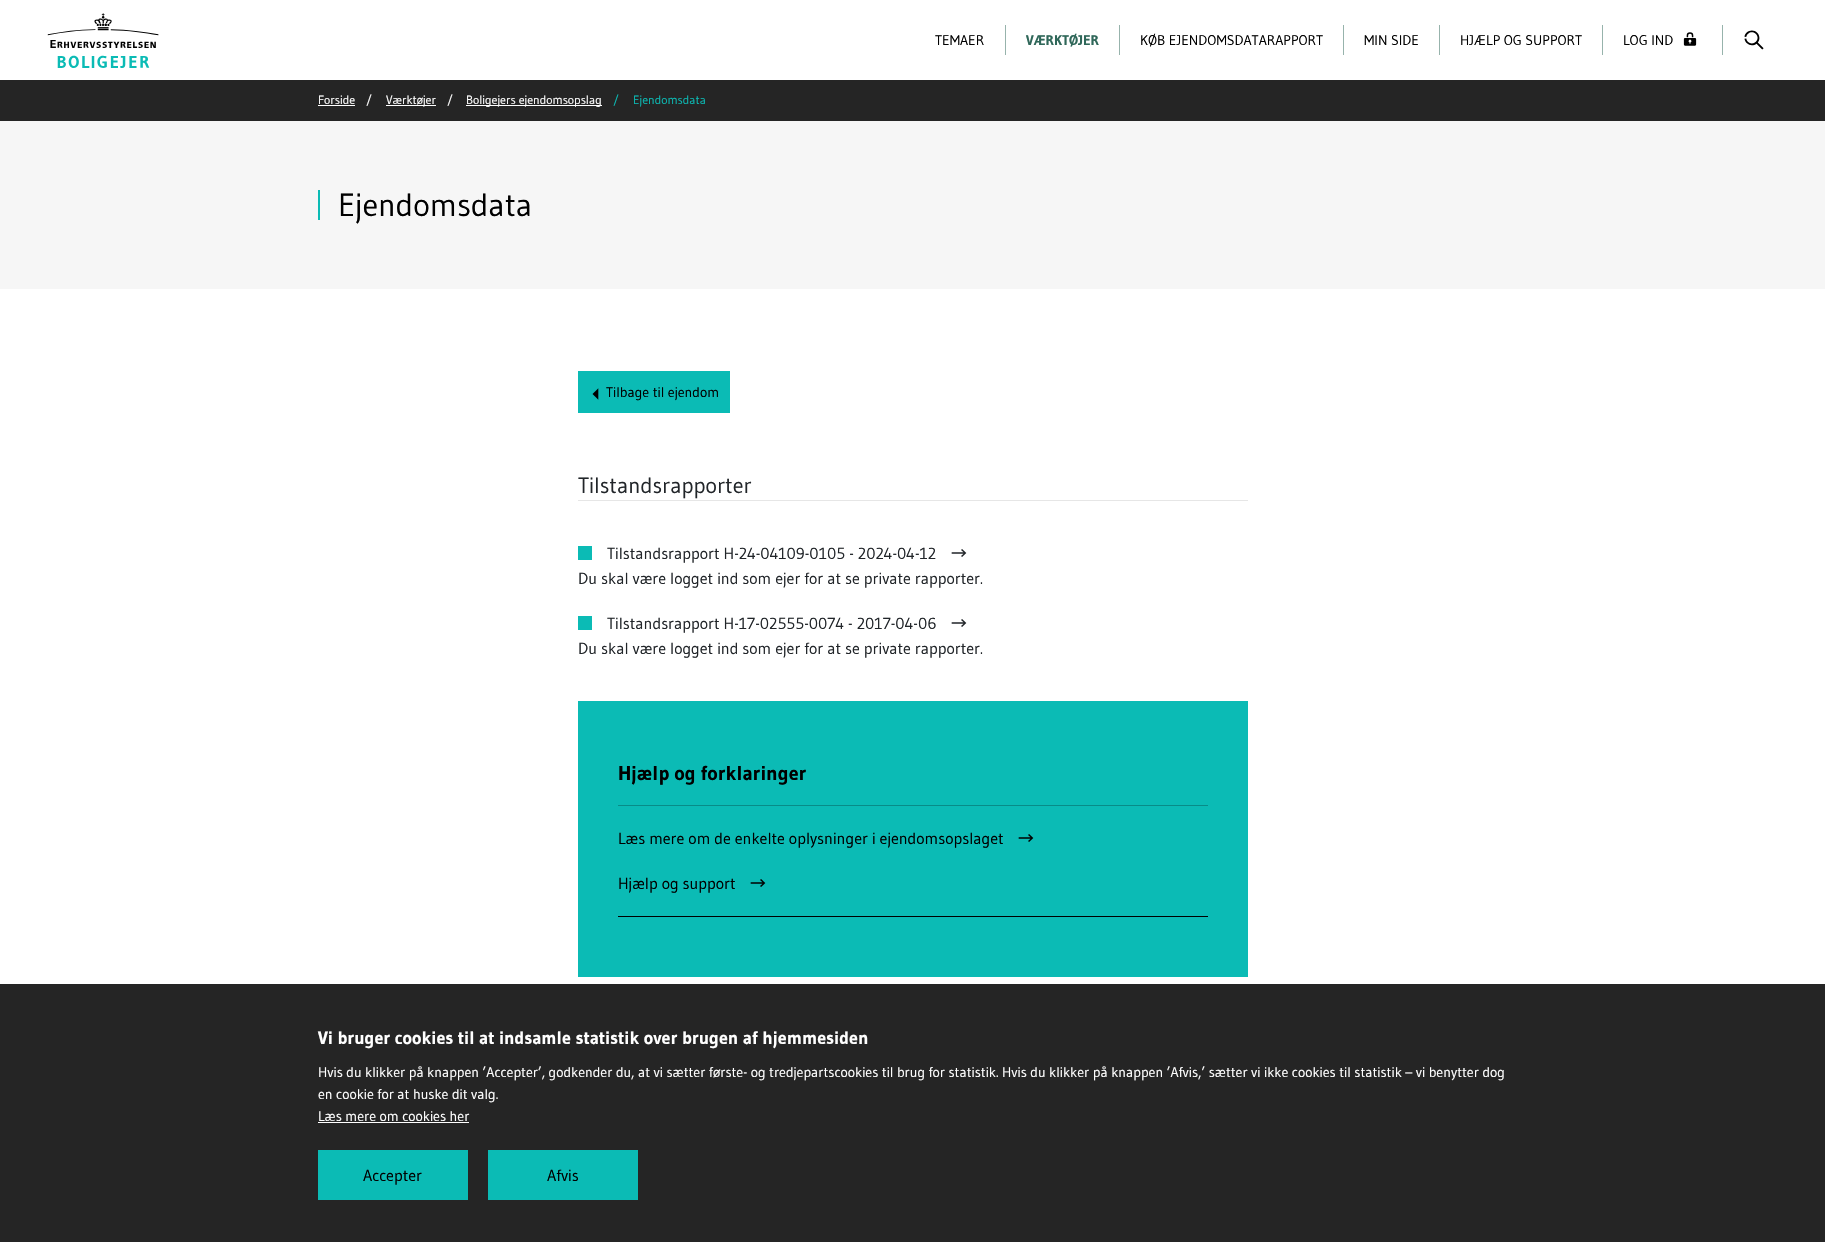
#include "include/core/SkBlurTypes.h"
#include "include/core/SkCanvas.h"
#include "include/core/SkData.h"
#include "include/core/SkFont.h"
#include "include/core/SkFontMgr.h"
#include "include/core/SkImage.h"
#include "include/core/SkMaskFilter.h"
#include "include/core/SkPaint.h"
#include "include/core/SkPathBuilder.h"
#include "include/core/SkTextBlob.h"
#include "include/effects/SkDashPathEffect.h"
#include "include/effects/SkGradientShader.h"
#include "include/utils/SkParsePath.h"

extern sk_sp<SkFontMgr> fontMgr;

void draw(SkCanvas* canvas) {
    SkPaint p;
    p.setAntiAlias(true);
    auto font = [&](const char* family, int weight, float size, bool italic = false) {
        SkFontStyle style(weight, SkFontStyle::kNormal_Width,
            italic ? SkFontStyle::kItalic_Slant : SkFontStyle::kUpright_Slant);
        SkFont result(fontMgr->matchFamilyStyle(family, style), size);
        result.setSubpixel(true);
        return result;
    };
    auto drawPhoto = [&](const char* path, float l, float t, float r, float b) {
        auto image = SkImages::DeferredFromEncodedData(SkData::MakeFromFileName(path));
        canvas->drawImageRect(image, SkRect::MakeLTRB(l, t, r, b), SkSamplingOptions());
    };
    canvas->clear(0xFFFFFFFF);
    drawPhoto("media/1.png", 47, 13, 159, 68);
    auto font1 = font("Gudea", 400, 14);
    p.setColor(0xFF000000);
    canvas->drawString("TEMAER", 935, 45, font1, p);
    p.setColor(0xFF97B3AC);
    canvas->drawRect(SkRect::MakeLTRB(1005, 25, 1006, 55), p);
    auto font2 = font("Gudea", 700, 14);
    p.setColor(0xFF2F6759);
    canvas->drawString("VÆRKTØJER", 1026, 45, font2, p);
    p.setColor(0xFF97B3AC);
    canvas->drawRect(SkRect::MakeLTRB(1119, 25, 1120, 55), p);
    p.setColor(0xFF000000);
    canvas->drawString("KØB EJENDOMSDATARAPPORT", 1140, 45, font1, p);
    p.setColor(0xFF97B3AC);
    canvas->drawRect(SkRect::MakeLTRB(1343, 25, 1344, 55), p);
    p.setColor(0xFF000000);
    canvas->drawString("MIN SIDE", 1364, 45, font1, p);
    p.setColor(0xFF97B3AC);
    canvas->drawRect(SkRect::MakeLTRB(1439, 25, 1440, 55), p);
    p.setColor(0xFF000000);
    canvas->drawString("HJÆLP OG SUPPORT", 1460, 45, font1, p);
    p.setColor(0xFF97B3AC);
    canvas->drawRect(SkRect::MakeLTRB(1602, 25, 1603, 55), p);
    p.setColor(0xFF000000);
    canvas->drawString("LOG IND", 1623, 45, font1, p);
    drawPhoto("media/2.png", 1683, 32, 1697, 46);
    p.setColor(0xFF97B3AC);
    canvas->drawRect(SkRect::MakeLTRB(1722, 25, 1723, 55), p);
    drawPhoto("media/3.png", 1744, 30, 1764, 50);
    p.setColor(0xFF252525);
    canvas->drawRect(SkRect::MakeLTRB(0, 80, 1825, 121), p);
    auto font3 = font("Gudea", 400, 12);
    p.setColor(0xFFFFFFFF);
    canvas->drawString("Forside", 318, 104, font3, p);
    canvas->drawRect(SkRect::MakeLTRB(318, 105, 355, 106), p);
    canvas->drawString("/", 366, 104, font3, p);
    canvas->drawRect(SkRect::MakeLTRB(386, 105, 436, 106), p);
    canvas->drawString("Værktøjer", 386, 104, font3, p);
    canvas->drawString("/", 447, 104, font3, p);
    canvas->drawRect(SkRect::MakeLTRB(466, 105, 602, 106), p);
    canvas->drawString("Boligejers ejendomsopslag", 466, 104, font3, p);
    p.setColor(0xFF0BBBB5);
    canvas->drawString("/", 613, 104, font3, p);
    canvas->drawString("Ejendomsdata", 633, 104, font3, p);
    p.setColor(0xFFF6F6F6);
    canvas->drawRect(SkRect::MakeLTRB(0, 121, 1825, 289), p);
    p.setColor(0xFF0BBBB5);
    canvas->drawRect(SkRect::MakeLTRB(318, 190, 320, 220), p);
    auto font4 = font("Gudea", 400, 32);
    p.setColor(0xFF000000);
    canvas->drawString("Ejendomsdata", 338, 216, font4, p);
    p.setColor(0xFF0BBBB5);
    canvas->drawRect(SkRect::MakeLTRB(578, 371, 730, 413), p);
    drawPhoto("media/4.png", 592, 388, 599, 400);
    p.setColor(0xFF000000);
    canvas->drawString("Tilbage til ejendom", 606, 397, font1, p);
    auto font5 = font("Gudea", 400, 22);
    p.setColor(0xFF212529);
    canvas->drawString("Tilstandsrapporter", 578, 493, font5, p);
    p.setColor(0xFFE6E6E6);
    canvas->drawRect(SkRect::MakeLTRB(578, 500, 1248, 501), p);
    p.setColor(0xFF0BBBB5);
    canvas->drawRect(SkRect::MakeLTRB(578, 546, 592, 560), p);
    auto font6 = font("Gudea", 400, 16);
    p.setColor(0xFF212529);
    canvas->drawString("Tilstandsrapport H-24-04109-0105 - 2024-04-12", 607, 559, font6, p);
    drawPhoto("media/5.png", 951, 549, 967, 557);
    canvas->drawString("Du skal være logget ind som ejer for at se private rapporter.", 578, 584, font6, p);
    p.setColor(0xFF0BBBB5);
    canvas->drawRect(SkRect::MakeLTRB(578, 616, 592, 630), p);
    p.setColor(0xFF212529);
    canvas->drawString("Tilstandsrapport H-17-02555-0074 - 2017-04-06", 607, 629, font6, p);
    drawPhoto("media/5.png", 951, 619, 967, 627);
    canvas->drawString("Du skal være logget ind som ejer for at se private rapporter.", 578, 654, font6, p);
    p.setColor(0xFF0BBBB5);
    canvas->drawRect(SkRect::MakeLTRB(578, 701, 1248, 977), p);
    auto font7 = font("Gudea", 700, 20);
    p.setColor(0xFF000000);
    canvas->drawString("Hjælp og forklaringer", 618, 780, font7, p);
    canvas->drawRect(SkRect::MakeLTRB(618, 916, 1208, 917), p);
    p.setColor(0xFF088C88);
    canvas->drawRect(SkRect::MakeLTRB(618, 805, 1208, 806), p);
    p.setColor(0xFF000000);
    canvas->drawString("Læs mere om de enkelte oplysninger i ejendomsopslaget", 618, 844, font6, p);
    drawPhoto("media/6.png", 1018, 834, 1034, 842);
    canvas->drawString("Hjælp og support", 618, 889, font6, p);
    drawPhoto("media/7.png", 750, 879, 766, 887);
    p.setColor(0xFF252525);
    canvas->drawRect(SkRect::MakeLTRB(0, 984, 1825, 1242), p);
    auto font8 = font("Gudea", 700, 18);
    p.setColor(0xFFFFFFFF);
    canvas->drawString("Vi bruger cookies til at indsamle statistik over brugen af hjemmesiden", 318, 1044, font8, p);
    {
        const struct { const char* s; float x, y; } items[] = {
            {"Hvis du klikker på knappen ’Accepter’, godkender du, at vi sætter første- og tredjepartscookies til brug for statistik. Hvis du klikker på knappen ’Afvis,’ sætter vi ikke cookies til statistik – vi benytter dog", 318, 1077},
            {"en cookie for at huske dit valg.", 318, 1099},
            {"Læs mere om cookies her", 318, 1121},
        };
        for (auto [s, x, y] : items) {
            canvas->drawString(s, x, y, font1, p);
        }
    }
    canvas->drawRect(SkRect::MakeLTRB(318, 1122, 469, 1123), p);
    p.setColor(0xFF0BBBB5);
    canvas->drawRect(SkRect::MakeLTRB(318, 1150, 468, 1200), p);
    p.setColor(0xFF000000);
    canvas->drawString("Accepter", 363, 1181, font6, p);
    p.setColor(0xFF0BBBB5);
    canvas->drawRect(SkRect::MakeLTRB(488, 1150, 638, 1200), p);
    p.setColor(0xFF000000);
    canvas->drawString("Afvis", 547, 1181, font6, p);
}
